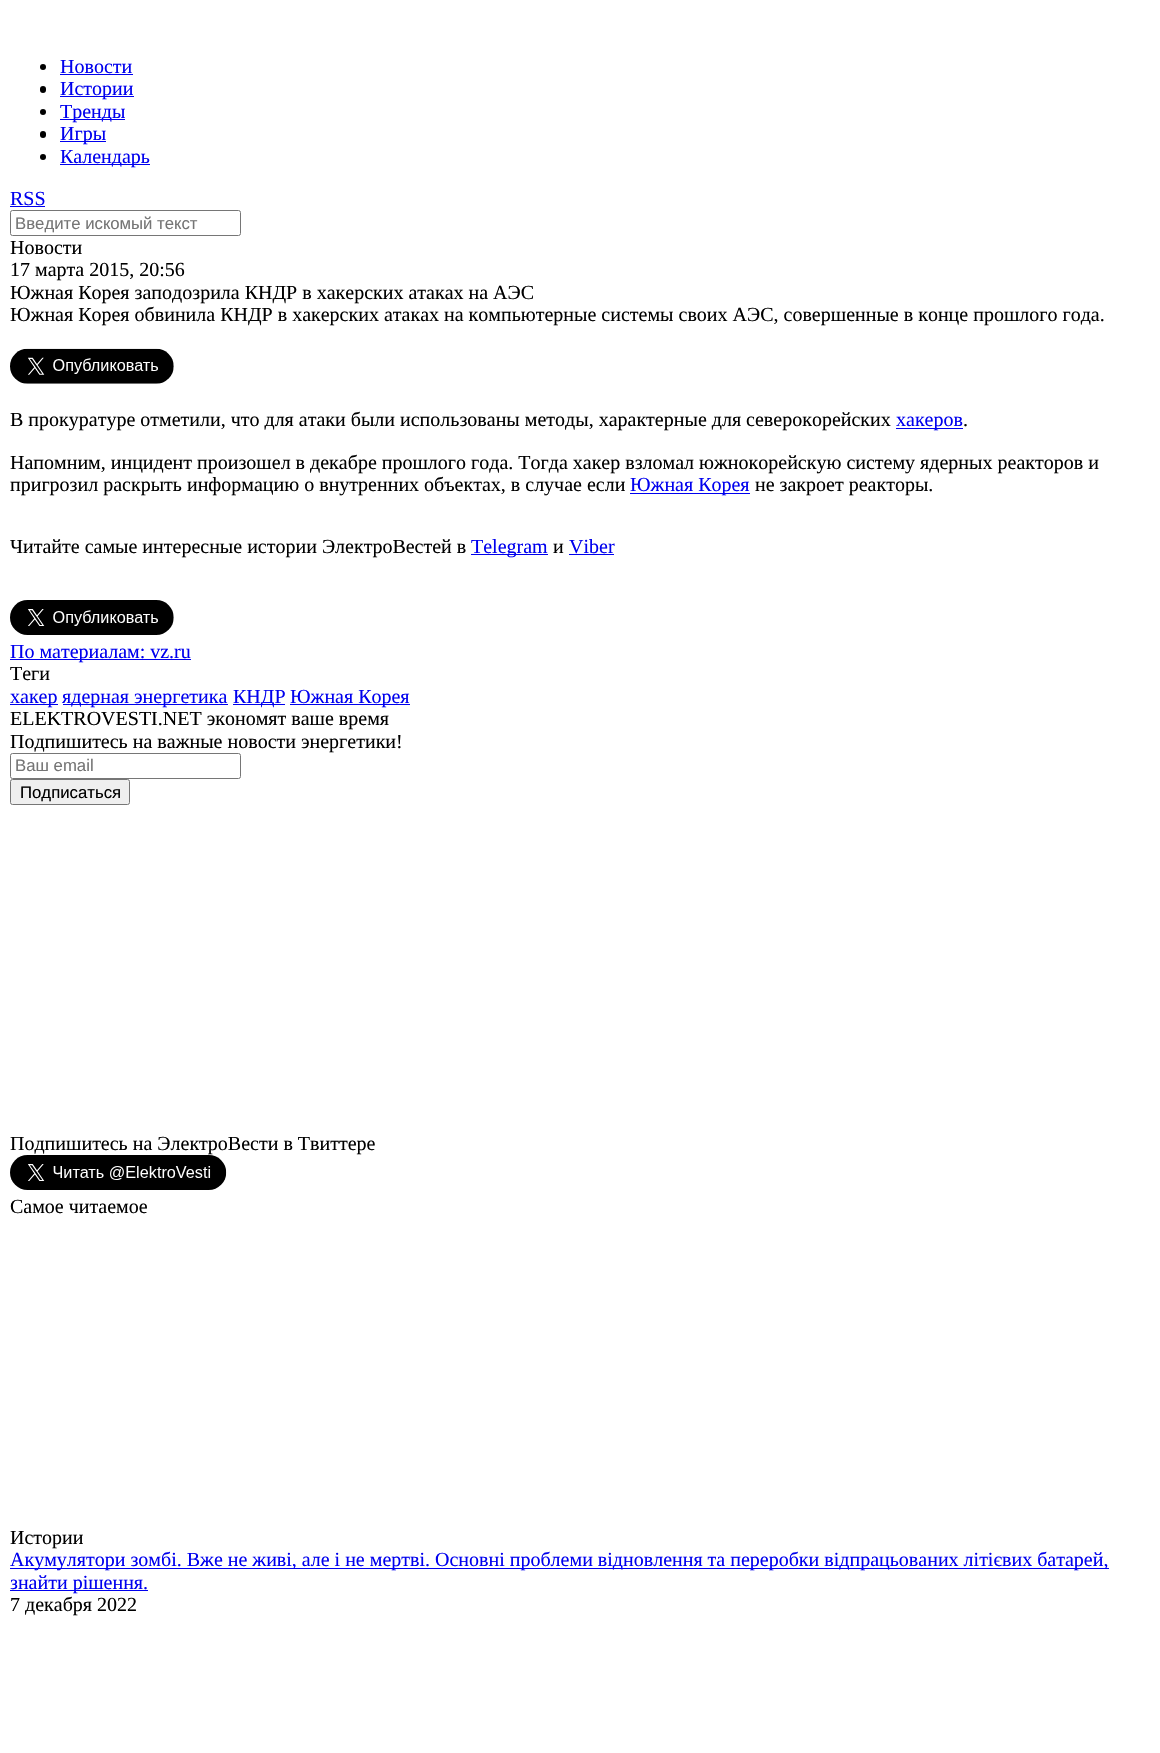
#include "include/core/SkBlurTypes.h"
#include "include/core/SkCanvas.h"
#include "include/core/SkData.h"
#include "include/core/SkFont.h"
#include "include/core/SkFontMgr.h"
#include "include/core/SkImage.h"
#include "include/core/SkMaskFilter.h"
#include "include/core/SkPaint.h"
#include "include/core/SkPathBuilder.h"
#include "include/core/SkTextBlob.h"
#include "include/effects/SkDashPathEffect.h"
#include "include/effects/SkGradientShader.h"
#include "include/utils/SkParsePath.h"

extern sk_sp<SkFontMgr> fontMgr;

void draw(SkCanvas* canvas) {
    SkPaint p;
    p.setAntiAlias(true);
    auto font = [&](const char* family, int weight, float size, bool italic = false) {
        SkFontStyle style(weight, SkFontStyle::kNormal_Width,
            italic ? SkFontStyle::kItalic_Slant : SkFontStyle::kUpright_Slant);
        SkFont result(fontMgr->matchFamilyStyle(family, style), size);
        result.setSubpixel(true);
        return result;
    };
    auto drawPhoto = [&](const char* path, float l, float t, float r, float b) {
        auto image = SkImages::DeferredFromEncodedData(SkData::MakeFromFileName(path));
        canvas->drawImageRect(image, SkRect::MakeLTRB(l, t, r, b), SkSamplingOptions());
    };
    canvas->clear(0xFFFFFFFF);
    p.setColor(0xFF000000);
    canvas->drawCircle(43, 67, 3, p);
    auto font1 = font("Liberation Serif", 400, 20);
    p.setColor(0xFF0000EE);
    canvas->drawString("Новости", 60, 73, font1, p);
    canvas->drawRect(SkRect::MakeLTRB(60, 74, 133, 75), p);
    p.setColor(0xFF000000);
    canvas->drawRoundRect(SkRect::MakeLTRB(40, 86, 46, 93), 3, 3, p);
    p.setColor(0xFF0000EE);
    canvas->drawRect(SkRect::MakeLTRB(60, 96, 134, 97), p);
    canvas->drawString("Истории", 60, 95, font1, p);
    p.setColor(0xFF000000);
    canvas->drawCircle(43, 112, 3, p);
    p.setColor(0xFF0000EE);
    canvas->drawRect(SkRect::MakeLTRB(60, 119, 125, 120), p);
    canvas->drawString("Тренды", 60, 118, font1, p);
    p.setColor(0xFF000000);
    canvas->drawRoundRect(SkRect::MakeLTRB(40, 131, 46, 138), 3, 3, p);
    p.setColor(0xFF0000EE);
    canvas->drawRect(SkRect::MakeLTRB(60, 141, 106, 142), p);
    canvas->drawString("Игры", 60, 140, font1, p);
    p.setColor(0xFF000000);
    canvas->drawCircle(43, 157, 3, p);
    p.setColor(0xFF0000EE);
    canvas->drawRect(SkRect::MakeLTRB(60, 164, 150, 165), p);
    canvas->drawString("Календарь", 60, 163, font1, p);
    canvas->drawString("RSS", 10, 205, font1, p);
    canvas->drawRect(SkRect::MakeLTRB(10, 206, 45, 207), p);
    p.setStyle(SkPaint::kStroke_Style);
    p.setStrokeWidth(1);
    p.setColor(0xFF767676);
    canvas->drawRoundRect(SkRect::MakeLTRB(10.5f, 210.5f, 240.5f, 235.5f), 2, 2, p);
    auto font2 = font("Liberation Sans", 400, 16.75f);
    p.setStyle(SkPaint::kFill_Style);
    p.setColor(0xFF757575);
    canvas->drawString("Введите искомый текст", 15, 229, font2, p);
    p.setColor(0xFF000000);
    {
        const struct { const char* s; float x, y; } items[] = {
            {"Новости", 10, 254},
            {"17 марта 2015, 20:56", 10, 276},
            {"Южная Корея заподозрила КНДР в хакерских атаках на АЭС", 10, 299},
            {"Южная Корея обвинила КНДР в хакерских атаках на компьютерные системы своих АЭС, совершенные в конце прошлого года.", 10, 321},
        };
        for (auto [s, x, y] : items) {
            canvas->drawString(s, x, y, font1, p);
        }
    }
    drawPhoto("media/1.png", 10, 348, 174, 384);
    canvas->drawString("В прокуратуре отметили, что для атаки были использованы методы, характерные для северокорейских", 10, 426, font1, p);
    p.setColor(0xFF0000EE);
    canvas->drawRect(SkRect::MakeLTRB(896, 428, 963, 429), p);
    canvas->drawString("хакеров", 896, 426, font1, p);
    p.setColor(0xFF000000);
    {
        const struct { const char* s; float x, y; } items[] = {
            {".", 963, 426},
            {"Напомним, инцидент произошел в декабре прошлого года. Тогда хакер взломал южнокорейскую систему ядерных реакторов и", 10, 469},
            {"пригрозил раскрыть информацию о внутренних объектах, в случае если", 10, 491},
        };
        for (auto [s, x, y] : items) {
            canvas->drawString(s, x, y, font1, p);
        }
    }
    p.setColor(0xFF0000EE);
    canvas->drawRect(SkRect::MakeLTRB(630, 493, 750, 494), p);
    canvas->drawString("Южная Корея", 630, 491, font1, p);
    p.setColor(0xFF000000);
    canvas->drawString("не закроет реакторы.", 755, 491, font1, p);
    canvas->drawString("Читайте самые интересные истории ЭлектроВестей в", 10, 553, font1, p);
    p.setColor(0xFF0000EE);
    canvas->drawRect(SkRect::MakeLTRB(471, 554, 548, 555), p);
    canvas->drawString("Telegram", 471, 553, font1, p);
    p.setColor(0xFF000000);
    canvas->drawString("и", 553, 553, font1, p);
    p.setColor(0xFF0000EE);
    canvas->drawString("Viber", 569, 553, font1, p);
    canvas->drawRect(SkRect::MakeLTRB(569, 554, 614, 555), p);
    drawPhoto("media/2.png", 10, 600, 174, 635);
    canvas->drawRect(SkRect::MakeLTRB(10, 659, 191, 660), p);
    canvas->drawString("По материалам: vz.ru", 10, 658, font1, p);
    p.setColor(0xFF000000);
    canvas->drawString("Теги", 10, 680, font1, p);
    p.setColor(0xFF0000EE);
    canvas->drawRect(SkRect::MakeLTRB(10, 704, 58, 705), p);
    canvas->drawString("хакер", 10, 703, font1, p);
    canvas->drawRect(SkRect::MakeLTRB(63, 704, 228, 705), p);
    canvas->drawString("ядерная энергетика", 62, 703, font1, p);
    canvas->drawRect(SkRect::MakeLTRB(233, 704, 285, 705), p);
    canvas->drawString("КНДР", 233, 703, font1, p);
    canvas->drawRect(SkRect::MakeLTRB(290, 704, 410, 705), p);
    canvas->drawString("Южная Корея", 290, 703, font1, p);
    p.setColor(0xFF000000);
    canvas->drawString("ELEKTROVESTI.NET экономят ваше время", 10, 725, font1, p);
    canvas->drawString("Подпишитесь на важные новости энергетики!", 10, 748, font1, p);
    p.setStyle(SkPaint::kStroke_Style);
    p.setColor(0xFF767676);
    canvas->drawRoundRect(SkRect::MakeLTRB(10.5f, 753.5f, 240.5f, 778.5f), 2, 2, p);
    p.setStyle(SkPaint::kFill_Style);
    p.setColor(0xFF757575);
    canvas->drawString("Ваш email", 15, 771, font2, p);
    p.setColor(0xFFEFEFEF);
    canvas->drawRoundRect(SkRect::MakeLTRB(10.5f, 779.5f, 129.5f, 804.5f), 2, 2, p);
    p.setStyle(SkPaint::kStroke_Style);
    p.setColor(0xFF767676);
    canvas->drawRoundRect(SkRect::MakeLTRB(10.5f, 779.5f, 129.5f, 804.5f), 2, 2, p);
    p.setStyle(SkPaint::kFill_Style);
    p.setColor(0xFF000000);
    canvas->drawString("Подписаться", 20, 798, font2, p);
    canvas->drawString("Подпишитесь на ЭлектроВести в Твиттере", 10, 1150, font1, p);
    drawPhoto("media/3.png", 10, 1155, 227, 1190);
    canvas->drawString("Самое читаемое", 10, 1213, font1, p);
    canvas->drawString("Истории", 10, 1544, font1, p);
    p.setColor(0xFF0000EE);
    canvas->drawRect(SkRect::MakeLTRB(10, 1568, 1109, 1569), p);
    canvas->drawString("Акумулятори зомбі. Вже не живі, але і не мертві. Основні проблеми відновлення та переробки відпрацьованих літієвих батарей,", 10, 1566, font1, p);
    canvas->drawRect(SkRect::MakeLTRB(10, 1590, 148, 1591), p);
    canvas->drawString("знайти рішення.", 10, 1589, font1, p);
    p.setColor(0xFF000000);
    canvas->drawString("7 декабря 2022", 10, 1611, font1, p);
}
